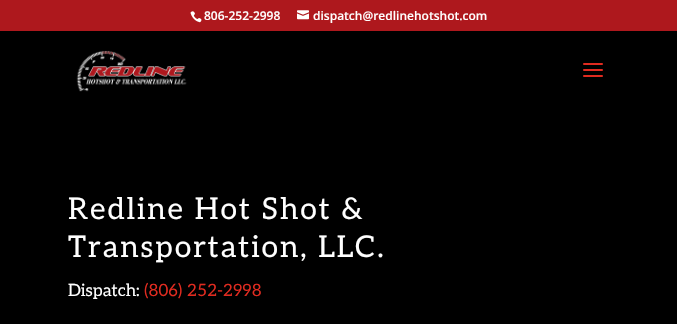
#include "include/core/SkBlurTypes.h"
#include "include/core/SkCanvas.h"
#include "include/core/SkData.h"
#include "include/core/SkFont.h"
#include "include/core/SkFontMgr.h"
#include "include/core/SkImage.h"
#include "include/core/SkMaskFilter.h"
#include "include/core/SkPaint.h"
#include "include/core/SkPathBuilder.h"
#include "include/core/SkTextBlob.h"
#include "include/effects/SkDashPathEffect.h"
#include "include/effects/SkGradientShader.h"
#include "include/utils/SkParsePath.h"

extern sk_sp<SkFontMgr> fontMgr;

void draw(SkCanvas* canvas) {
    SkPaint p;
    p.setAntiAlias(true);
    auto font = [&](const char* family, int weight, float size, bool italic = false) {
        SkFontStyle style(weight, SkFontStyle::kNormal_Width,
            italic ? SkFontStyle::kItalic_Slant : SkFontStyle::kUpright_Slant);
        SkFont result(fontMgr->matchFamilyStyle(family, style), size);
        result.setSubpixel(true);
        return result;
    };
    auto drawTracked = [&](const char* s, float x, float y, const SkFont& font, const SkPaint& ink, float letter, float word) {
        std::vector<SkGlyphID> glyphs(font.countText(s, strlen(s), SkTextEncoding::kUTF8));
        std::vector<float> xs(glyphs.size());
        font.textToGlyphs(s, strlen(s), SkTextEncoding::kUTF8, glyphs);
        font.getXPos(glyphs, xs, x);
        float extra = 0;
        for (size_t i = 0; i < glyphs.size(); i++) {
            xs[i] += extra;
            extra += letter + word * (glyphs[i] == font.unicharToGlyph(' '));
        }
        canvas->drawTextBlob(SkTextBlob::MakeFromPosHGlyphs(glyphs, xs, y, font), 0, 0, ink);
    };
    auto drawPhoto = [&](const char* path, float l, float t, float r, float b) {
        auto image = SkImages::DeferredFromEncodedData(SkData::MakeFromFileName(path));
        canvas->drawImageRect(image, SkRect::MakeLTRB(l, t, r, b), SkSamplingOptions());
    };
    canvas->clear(0xFF000000);
    p.setColor(0xFFAE181D);
    canvas->drawRect(SkRect::MakeLTRB(0, 0, 677, 31), p);
    drawPhoto("media/1.png", 190, 11, 202, 23);
    auto font1 = font("Open Sans", 600, 12);
    p.setColor(0xFFFFFFFF);
    canvas->drawString("806-252-2998", 204, 20, font1, p);
    drawPhoto("media/2.png", 297, 10, 309, 20);
    canvas->drawString("dispatch@redlinehotshot.com", 313, 20, font1, p);
    drawPhoto("media/3.png", 76, 50, 187, 92);
    drawPhoto("media/4.png", 583, 63, 603, 77);
    auto font2 = font("Aleo", 400, 30);
    drawTracked("Redline Hot Shot &", 68, 219, font2, p, 2, 0);
    drawTracked("Transportation, LLC.", 68, 257, font2, p, 2, 0);
    auto font3 = font("Aleo", 400, 17);
    canvas->drawString("Dispatch:", 68, 296, font3, p);
    p.setColor(0xFFE02B20);
    canvas->drawString("(806) 252-2998", 144, 296, font3, p);
}
